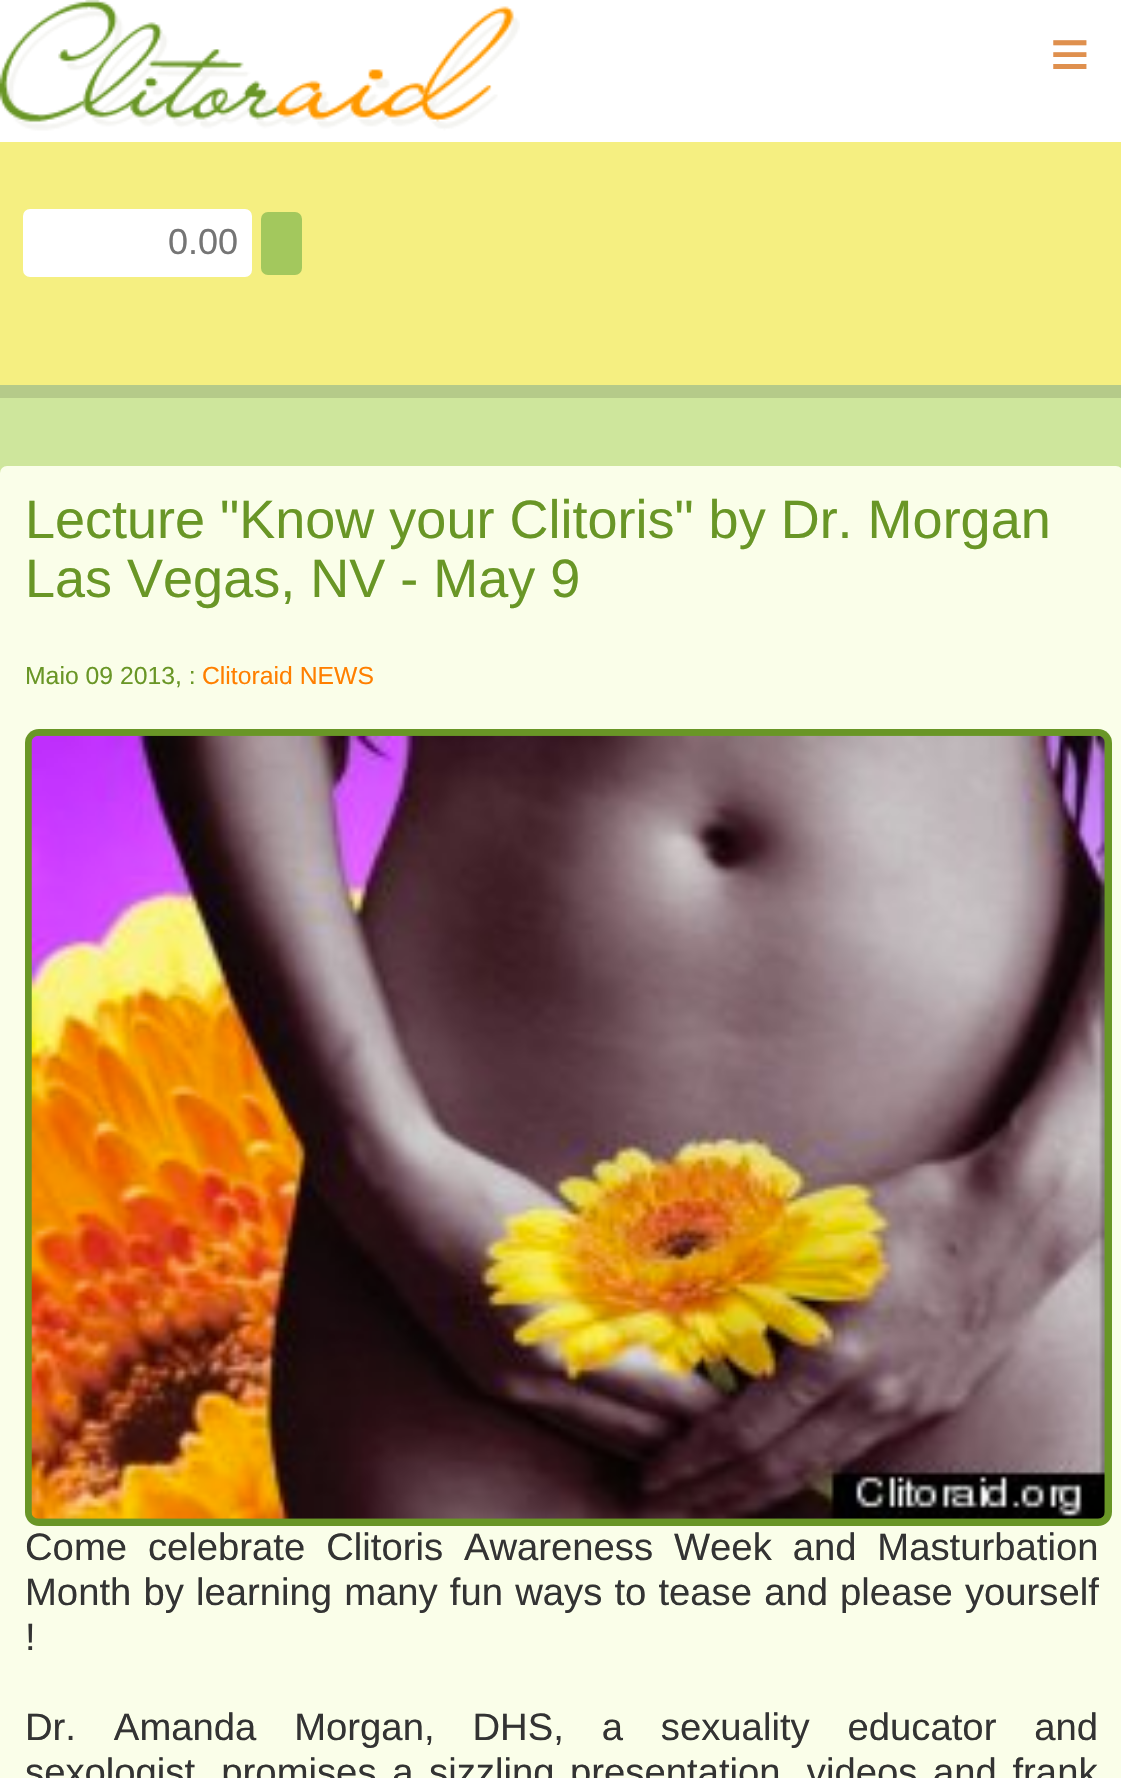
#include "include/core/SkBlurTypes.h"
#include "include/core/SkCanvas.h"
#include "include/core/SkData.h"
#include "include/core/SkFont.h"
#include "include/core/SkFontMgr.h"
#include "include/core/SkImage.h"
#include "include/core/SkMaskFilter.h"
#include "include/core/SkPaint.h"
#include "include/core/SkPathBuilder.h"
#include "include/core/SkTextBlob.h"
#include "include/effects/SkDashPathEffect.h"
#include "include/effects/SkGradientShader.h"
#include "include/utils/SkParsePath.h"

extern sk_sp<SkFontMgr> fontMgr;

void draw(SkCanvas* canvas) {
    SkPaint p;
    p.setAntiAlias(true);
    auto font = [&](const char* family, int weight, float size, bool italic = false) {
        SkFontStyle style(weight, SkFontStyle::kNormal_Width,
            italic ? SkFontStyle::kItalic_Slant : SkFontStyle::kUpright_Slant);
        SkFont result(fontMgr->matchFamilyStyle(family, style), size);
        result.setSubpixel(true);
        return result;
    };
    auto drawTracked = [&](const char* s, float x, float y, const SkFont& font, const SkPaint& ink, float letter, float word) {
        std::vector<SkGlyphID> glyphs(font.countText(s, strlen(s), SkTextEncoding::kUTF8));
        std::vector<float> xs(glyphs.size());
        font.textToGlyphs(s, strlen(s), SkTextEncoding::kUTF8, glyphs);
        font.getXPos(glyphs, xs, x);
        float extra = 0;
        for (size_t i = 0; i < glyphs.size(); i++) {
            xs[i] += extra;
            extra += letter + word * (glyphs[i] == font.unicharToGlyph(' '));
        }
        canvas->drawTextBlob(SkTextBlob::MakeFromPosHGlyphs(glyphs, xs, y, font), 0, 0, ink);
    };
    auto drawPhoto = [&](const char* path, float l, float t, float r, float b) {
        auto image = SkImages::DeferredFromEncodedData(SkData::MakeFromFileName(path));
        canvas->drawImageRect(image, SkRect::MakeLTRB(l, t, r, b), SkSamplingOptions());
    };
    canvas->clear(0xFFFFFFFF);
    drawPhoto("media/1.png", 0, 0, 520, 131);
    auto font1 = font("Liberation Sans", 700, 68);
    p.setColor(0xFFDF904E);
    canvas->drawString("≡", 1050, 77, font1, p);
    p.setColor(0xFFF5EF81);
    canvas->drawRect(SkRect::MakeLTRB(0, 142, 1121, 385), p);
    p.setColor(0xFFFFFFFF);
    canvas->drawRoundRect(SkRect::MakeLTRB(24, 210, 251, 276), 6, 6, p);
    p.setStyle(SkPaint::kStroke_Style);
    p.setStrokeWidth(2);
    canvas->drawRoundRect(SkRect::MakeLTRB(24, 210, 251, 276), 6, 6, p);
    auto font2 = font("Liberation Sans", 400, 36);
    p.setStyle(SkPaint::kFill_Style);
    p.setColor(0xFF757575);
    canvas->drawString("0.00", 168, 254, font2, p);
    p.setColor(0xFFA3C85D);
    canvas->drawRoundRect(SkRect::MakeLTRB(262, 213, 301, 274), 6, 6, p);
    p.setStyle(SkPaint::kStroke_Style);
    canvas->drawRoundRect(SkRect::MakeLTRB(262, 213, 301, 274), 6, 6, p);
    p.setStyle(SkPaint::kFill_Style);
    p.setColor(0xFFCEE69C);
    canvas->drawRect(SkRect::MakeLTRB(0, 398, 1121, 473), p);
    p.setColor(0xFFB5CA89);
    canvas->drawRect(SkRect::MakeLTRB(0, 385, 1121, 398), p);
    p.setColor(0xFFFAFEE9);
    canvas->drawRoundRect(SkRect::MakeLTRB(1, 467, 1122, 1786), 6, 6, p);
    p.setStyle(SkPaint::kStroke_Style);
    canvas->drawRoundRect(SkRect::MakeLTRB(1, 467, 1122, 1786), 6, 6, p);
    auto font3 = font("Liberation Sans", 400, 54);
    p.setStyle(SkPaint::kFill_Style);
    p.setColor(0xFF699626);
    canvas->drawString("Lecture \"Know your Clitoris\" by Dr. Morgan", 25, 538, font3, p);
    canvas->drawString("Las Vegas, NV - May 9", 25, 597, font3, p);
    auto font4 = font("Liberation Sans", 400, 24.75f);
    canvas->drawString("Maio 09 2013, :", 25, 684, font4, p);
    p.setColor(0xFFFF7F00);
    canvas->drawString("Clitoraid NEWS", 202, 684, font4, p);
    p.setColor(0xFF699626);
    canvas->drawRoundRect(SkRect::MakeLTRB(25, 729, 1112, 1526), 14, 14, p);
    drawPhoto("media/2.png", 31, 735, 1105, 1519);
    auto font5 = font("Liberation Sans", 400, 38.25f);
    p.setColor(0xFF333333);
    drawTracked("Come celebrate Clitoris Awareness Week and Masturbation", 25, 1560, font5, p, 0, 10.25f);
    drawTracked("Month by learning many fun ways to tease and please yourself", 25, 1605, font5, p, 0, 1.5f);
    canvas->drawString("!", 25, 1650, font5, p);
    drawTracked("Dr. Amanda Morgan, DHS, a sexuality educator and", 25, 1740, font5, p, 0, 27.25f);
    drawTracked("sexologist, promises a sizzling presentation, videos and frank", 25, 1785, font5, p, 0, 5);
}
